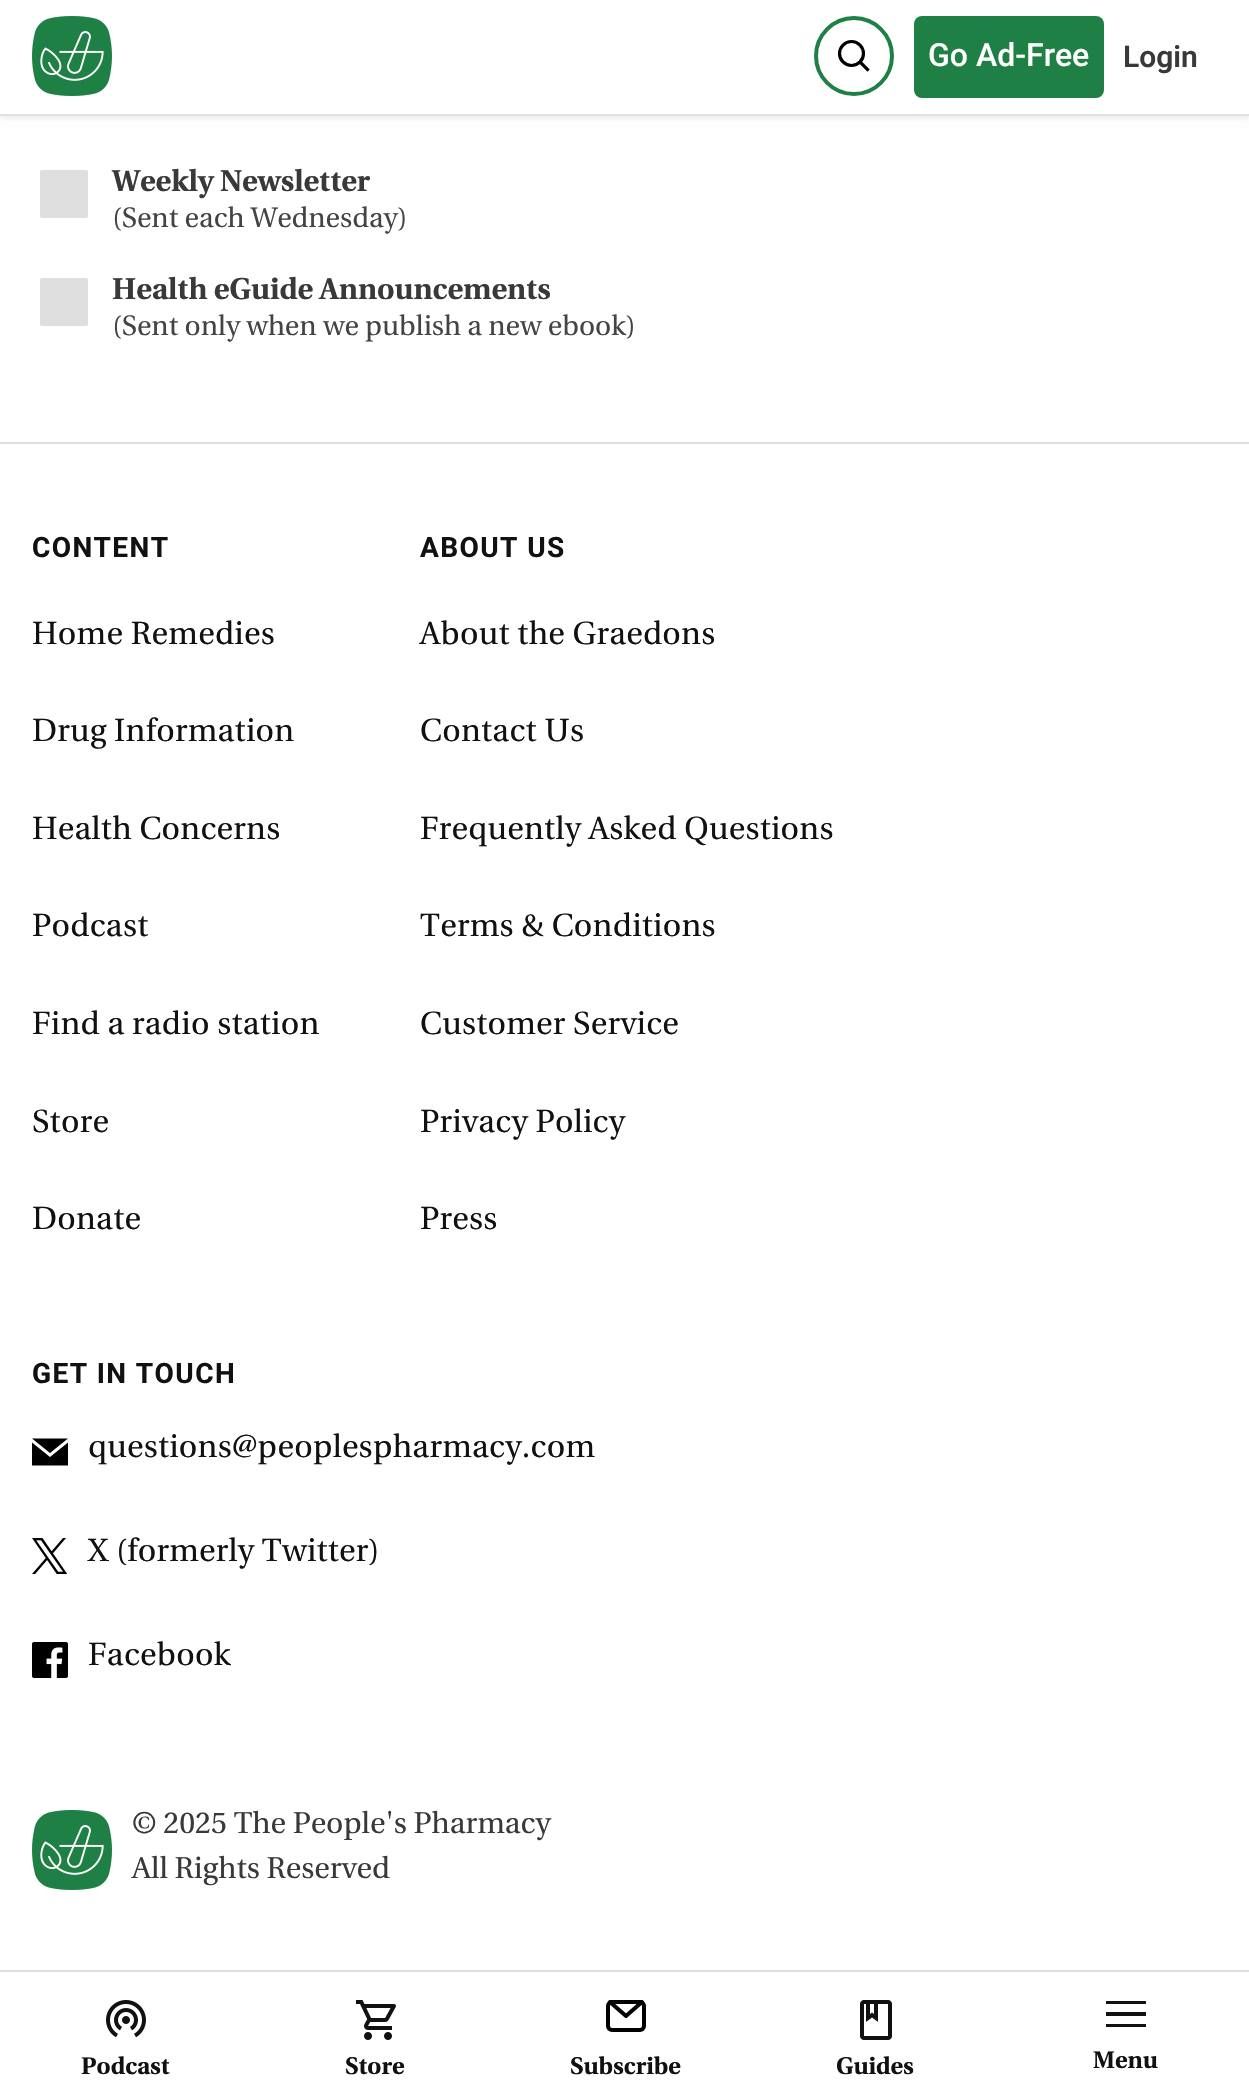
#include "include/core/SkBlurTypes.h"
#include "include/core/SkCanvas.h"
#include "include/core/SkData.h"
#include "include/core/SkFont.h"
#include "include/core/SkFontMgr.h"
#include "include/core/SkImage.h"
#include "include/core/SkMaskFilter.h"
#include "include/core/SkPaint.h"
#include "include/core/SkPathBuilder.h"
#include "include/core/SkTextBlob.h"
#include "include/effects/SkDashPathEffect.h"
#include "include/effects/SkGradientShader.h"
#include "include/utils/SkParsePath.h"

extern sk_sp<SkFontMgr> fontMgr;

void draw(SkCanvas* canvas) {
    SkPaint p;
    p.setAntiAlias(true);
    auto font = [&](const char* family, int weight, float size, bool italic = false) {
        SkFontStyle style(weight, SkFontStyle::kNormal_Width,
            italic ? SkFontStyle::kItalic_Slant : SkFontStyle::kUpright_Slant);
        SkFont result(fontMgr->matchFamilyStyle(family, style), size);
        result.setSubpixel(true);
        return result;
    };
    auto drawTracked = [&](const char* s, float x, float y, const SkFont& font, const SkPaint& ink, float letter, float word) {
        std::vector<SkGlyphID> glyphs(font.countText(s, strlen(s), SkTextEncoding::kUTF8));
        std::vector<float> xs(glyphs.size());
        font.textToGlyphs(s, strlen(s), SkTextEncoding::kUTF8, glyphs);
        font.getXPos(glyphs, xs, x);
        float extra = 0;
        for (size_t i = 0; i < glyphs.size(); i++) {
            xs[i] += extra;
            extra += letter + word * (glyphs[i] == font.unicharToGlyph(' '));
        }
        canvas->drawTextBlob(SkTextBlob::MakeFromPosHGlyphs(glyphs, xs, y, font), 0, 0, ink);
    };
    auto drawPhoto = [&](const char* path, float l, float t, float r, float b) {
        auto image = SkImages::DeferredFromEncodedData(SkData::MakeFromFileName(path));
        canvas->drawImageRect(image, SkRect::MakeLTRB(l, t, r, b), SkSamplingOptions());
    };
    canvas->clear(0xFFFFFFFF);
    p.setColor(0x17000000);
    p.setMaskFilter(SkMaskFilter::MakeBlur(kNormal_SkBlurStyle, 3));
    canvas->drawRect(SkRect::MakeLTRB(0, 2, 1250, 118), p);
    p.setMaskFilter(nullptr);
    p.setColor(0xFFFFFFFF);
    canvas->drawRect(SkRect::MakeLTRB(0, 0, 1249, 114), p);
    p.setColor(0xFFE1E1E1);
    canvas->drawRect(SkRect::MakeLTRB(0, 114, 1249, 116), p);
    drawPhoto("media/1.png", 32, 16, 112, 96);
    p.setStyle(SkPaint::kStroke_Style);
    p.setStrokeWidth(4);
    p.setColor(0xFF1E8044);
    canvas->drawCircle(854, 56, 38, p);
    p.setStrokeWidth(3.2f);
    p.setStrokeCap(SkPaint::kSquare_Cap);
    p.setColor(0xFF000000);
    canvas->drawPath(SkPathBuilder().moveTo(861.5f, 63.5f).lineTo(867.5f, 69.5f).detach(), p);
    p.setStrokeCap(SkPaint::kButt_Cap);
    canvas->drawCircle(851.5f, 53.5f, 12, p);
    p.setStyle(SkPaint::kFill_Style);
    p.setColor(0xFF1E8044);
    canvas->drawRoundRect(SkRect::MakeLTRB(914, 16, 1104, 98), 8, 8, p);
    auto font1 = font("Roboto", 500, 32);
    p.setColor(0xFFFFFFFF);
    canvas->drawString("Go Ad-Free", 928, 66, font1, p);
    auto font2 = font("Roboto", 600, 30);
    p.setColor(0xFF393939);
    canvas->drawString("Login", 1123, 67, font2, p);
    p.setColor(0xFFDEDEDE);
    canvas->drawRoundRect(SkRect::MakeLTRB(38, 168, 90, 220), 4, 4, p);
    p.setStyle(SkPaint::kStroke_Style);
    p.setStrokeWidth(4);
    p.setColor(0xFFFFFFFF);
    canvas->drawRoundRect(SkRect::MakeLTRB(38, 168, 90, 220), 4, 4, p);
    auto font3 = font("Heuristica", 700, 30);
    p.setStyle(SkPaint::kFill_Style);
    p.setColor(0xFF393939);
    canvas->drawString("Weekly Newsletter", 112, 191, font3, p);
    auto font4 = font("Heuristica", 400, 28);
    p.setColor(0xFF444444);
    canvas->drawString("(Sent each Wednesday)", 112, 227, font4, p);
    p.setColor(0xFFDEDEDE);
    canvas->drawRoundRect(SkRect::MakeLTRB(38, 276, 90, 328), 4, 4, p);
    p.setStyle(SkPaint::kStroke_Style);
    p.setColor(0xFFFFFFFF);
    canvas->drawRoundRect(SkRect::MakeLTRB(38, 276, 90, 328), 4, 4, p);
    p.setStyle(SkPaint::kFill_Style);
    p.setColor(0xFF393939);
    canvas->drawString("Health eGuide Announcements", 112, 299, font3, p);
    p.setColor(0xFF444444);
    canvas->drawString("(Sent only when we publish a new ebook)", 112, 335, font4, p);
    p.setColor(0xFFDEDEDE);
    canvas->drawRect(SkRect::MakeLTRB(0, 442, 1249, 444), p);
    auto font5 = font("Roboto", 700, 28);
    p.setColor(0xFF111111);
    drawTracked("CONTENT", 32, 557, font5, p, 1.4f, 0);
    auto font6 = font("Heuristica", 400, 32);
    {
        const struct { const char* s; float x, y; } items[] = {
            {"Home Remedies", 32, 644},
            {"Drug Information", 32, 741},
            {"Health Concerns", 32, 839},
            {"Podcast", 32, 936},
            {"Find a radio station", 32, 1034},
            {"Store", 32, 1132},
            {"Donate", 32, 1229},
        };
        for (auto [s, x, y] : items) {
            drawTracked(s, x, y, font6, p, 0.3f, 0);
        }
    }
    drawTracked("ABOUT US", 420, 557, font5, p, 1.4f, 0);
    {
        const struct { const char* s; float x, y; } items[] = {
            {"About the Graedons", 420, 644},
            {"Contact Us", 420, 741},
            {"Frequently Asked Questions", 420, 839},
            {"Terms & Conditions", 420, 936},
            {"Customer Service", 420, 1034},
            {"Privacy Policy", 420, 1132},
            {"Press", 420, 1229},
        };
        for (auto [s, x, y] : items) {
            drawTracked(s, x, y, font6, p, 0.3f, 0);
        }
    }
    drawTracked("GET IN TOUCH", 32, 1383, font5, p, 1.4f, 0);
    p.setColor(0xFF000000);
    canvas->drawPath(SkPathBuilder().moveTo(50, 1453).lineTo(32, 1438.5f).lineTo(68, 1438.5f).close().moveTo(50, 1457).lineTo(32, 1442.5f).lineTo(32, 1465.5f).lineTo(68, 1465.5f).lineTo(68, 1442.5f).close().detach(), p);
    p.setColor(0xFF111111);
    drawTracked("questions@peoplespharmacy.com", 88, 1457, font6, p, 0.3f, 0);
    drawPhoto("media/2.png", 32, 1538, 68, 1574);
    drawTracked("X (formerly Twitter)", 88, 1561, font6, p, 0.3f, 0);
    drawPhoto("media/3.png", 32, 1642, 68, 1678);
    drawTracked("Facebook", 88, 1665, font6, p, 0.3f, 0);
    drawPhoto("media/1.png", 32, 1810, 112, 1890);
    auto font7 = font("Heuristica", 400, 30);
    p.setColor(0xFF393939);
    canvas->drawString("© 2025 The People's Pharmacy", 132, 1833, font7, p);
    canvas->drawString("All Rights Reserved", 132, 1878, font7, p);
    p.setColor(0xFFDEDEDE);
    canvas->drawRect(SkRect::MakeLTRB(0, 1970, 1249, 1972), p);
    drawPhoto("media/4.png", 106, 2000, 146, 2038);
    auto font8 = font("Heuristica", 700, 24);
    p.setColor(0xFF111111);
    canvas->drawString("Podcast", 81, 2074, font8, p);
    drawPhoto("media/5.png", 356, 2000, 396, 2040);
    canvas->drawString("Store", 345, 2074, font8, p);
    p.setStyle(SkPaint::kStroke_Style);
    p.setColor(0xFF000000);
    canvas->drawRoundRect(SkRect::MakeLTRB(608, 2002, 644, 2030), 4, 4, p);
    p.setStyle(SkPaint::kFill_Style);
    p.setColor(0xFFFFFFFF);
    canvas->drawPath(SkPathBuilder(SkPathFillType::kEvenOdd).moveTo(626, 2016).lineTo(642, 2002).lineTo(610, 2002).close().detach(), p);
    p.setStyle(SkPaint::kStroke_Style);
    p.setStrokeJoin(SkPaint::kRound_Join);
    p.setColor(0xFF000000);
    canvas->drawPath(SkPathBuilder(SkPathFillType::kEvenOdd).moveTo(626, 2016).lineTo(642, 2002).lineTo(610, 2002).close().detach(), p);
    p.setStyle(SkPaint::kFill_Style);
    p.setColor(0xFF111111);
    canvas->drawString("Subscribe", 570, 2074, font8, p);
    drawPhoto("media/6.png", 860, 2000, 892, 2040);
    canvas->drawString("Guides", 836, 2074, font8, p);
    canvas->drawPath(SkPathBuilder().moveTo(1106, 2027).lineTo(1146, 2027).lineTo(1146, 2024).lineTo(1106, 2024).close().moveTo(1106, 2016).lineTo(1146, 2016).lineTo(1146, 2012).lineTo(1106, 2012).close().moveTo(1106, 2001).lineTo(1106, 2004).lineTo(1146, 2004).lineTo(1146, 2001).close().detach(), p);
    canvas->drawString("Menu", 1093, 2068, font8, p);
}
